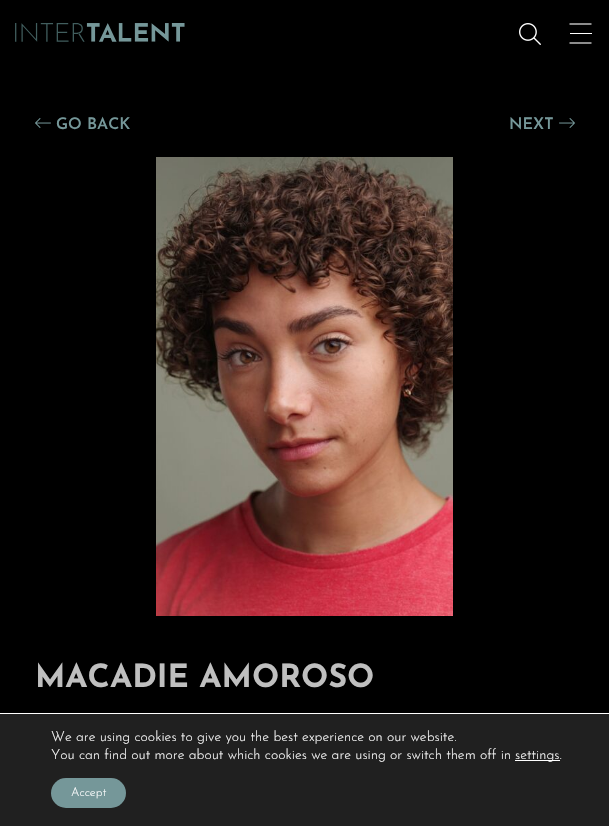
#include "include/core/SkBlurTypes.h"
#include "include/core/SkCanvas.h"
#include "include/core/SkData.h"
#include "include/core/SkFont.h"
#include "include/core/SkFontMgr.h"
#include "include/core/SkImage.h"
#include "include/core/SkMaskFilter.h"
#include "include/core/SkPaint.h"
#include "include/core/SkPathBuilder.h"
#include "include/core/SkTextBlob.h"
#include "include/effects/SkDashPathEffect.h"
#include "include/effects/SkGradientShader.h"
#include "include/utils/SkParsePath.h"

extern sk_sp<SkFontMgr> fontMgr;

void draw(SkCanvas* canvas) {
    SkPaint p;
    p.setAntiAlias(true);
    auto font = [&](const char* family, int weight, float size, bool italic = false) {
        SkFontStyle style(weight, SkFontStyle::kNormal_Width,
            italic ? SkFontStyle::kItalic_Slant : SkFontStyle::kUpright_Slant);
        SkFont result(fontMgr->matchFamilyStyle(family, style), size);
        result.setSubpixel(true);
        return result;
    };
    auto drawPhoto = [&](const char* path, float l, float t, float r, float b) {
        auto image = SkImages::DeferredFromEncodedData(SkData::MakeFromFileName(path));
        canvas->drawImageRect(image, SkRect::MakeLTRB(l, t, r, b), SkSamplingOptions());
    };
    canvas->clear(0xFF000000);
    drawPhoto("media/1.png", 15, 23, 185, 42);
    drawPhoto("media/2.png", 519, 23, 541, 45);
    p.setStyle(SkPaint::kStroke_Style);
    p.setStrokeWidth(1.1f);
    p.setColor(0xFFFFFFFF);
    canvas->drawPath(SkPathBuilder().moveTo(569.5f, 24).lineTo(591.5f, 24).detach(), p);
    p.setStyle(SkPaint::kFill_Style);
    canvas->drawRect(SkRect::MakeLTRB(570, 33, 592, 34), p);
    p.setStyle(SkPaint::kStroke_Style);
    canvas->drawPath(SkPathBuilder().moveTo(591.5f, 43).lineTo(569.5f, 43).detach(), p);
    drawPhoto("media/3.png", 35, 118, 51, 128);
    auto font1 = font("Josefin Sans", 600, 16);
    p.setStyle(SkPaint::kFill_Style);
    p.setColor(0xFF759799);
    canvas->drawString("GO BACK", 56, 129, font1, p);
    canvas->drawString("NEXT", 509, 129, font1, p);
    drawPhoto("media/4.png", 559, 118, 575, 128);
    drawPhoto("media/5.png", 156, 157, 453, 616);
    auto font2 = font("Josefin Sans", 700, 32);
    p.setColor(0xFFBFBFBF);
    canvas->drawString("MACADIE AMOROSO", 35, 687, font2, p);
    p.setColor(0xFF202020);
    canvas->drawRect(SkRect::MakeLTRB(0, 714, 609, 826), p);
    p.setColor(0xFFFFFFFF);
    canvas->drawRect(SkRect::MakeLTRB(0, 713, 609, 714), p);
    auto font3 = font("Josefin Sans", 300, 14);
    canvas->drawString("We are using cookies to give you the best experience on our website.", 51, 741, font3, p);
    canvas->drawString("You can find out more about which cookies we are using or switch them off in", 51, 759, font3, p);
    canvas->drawRect(SkRect::MakeLTRB(515, 760, 560, 761), p);
    canvas->drawString("settings.", 515, 759, font3, p);
    p.setColor(0xFF759799);
    canvas->drawRoundRect(SkRect::MakeLTRB(51, 778, 126, 808), 15, 15, p);
    auto font4 = font("Josefin Sans", 300, 12);
    p.setColor(0xFFFFFFFF);
    canvas->drawString("Accept", 71, 796, font4, p);
}
